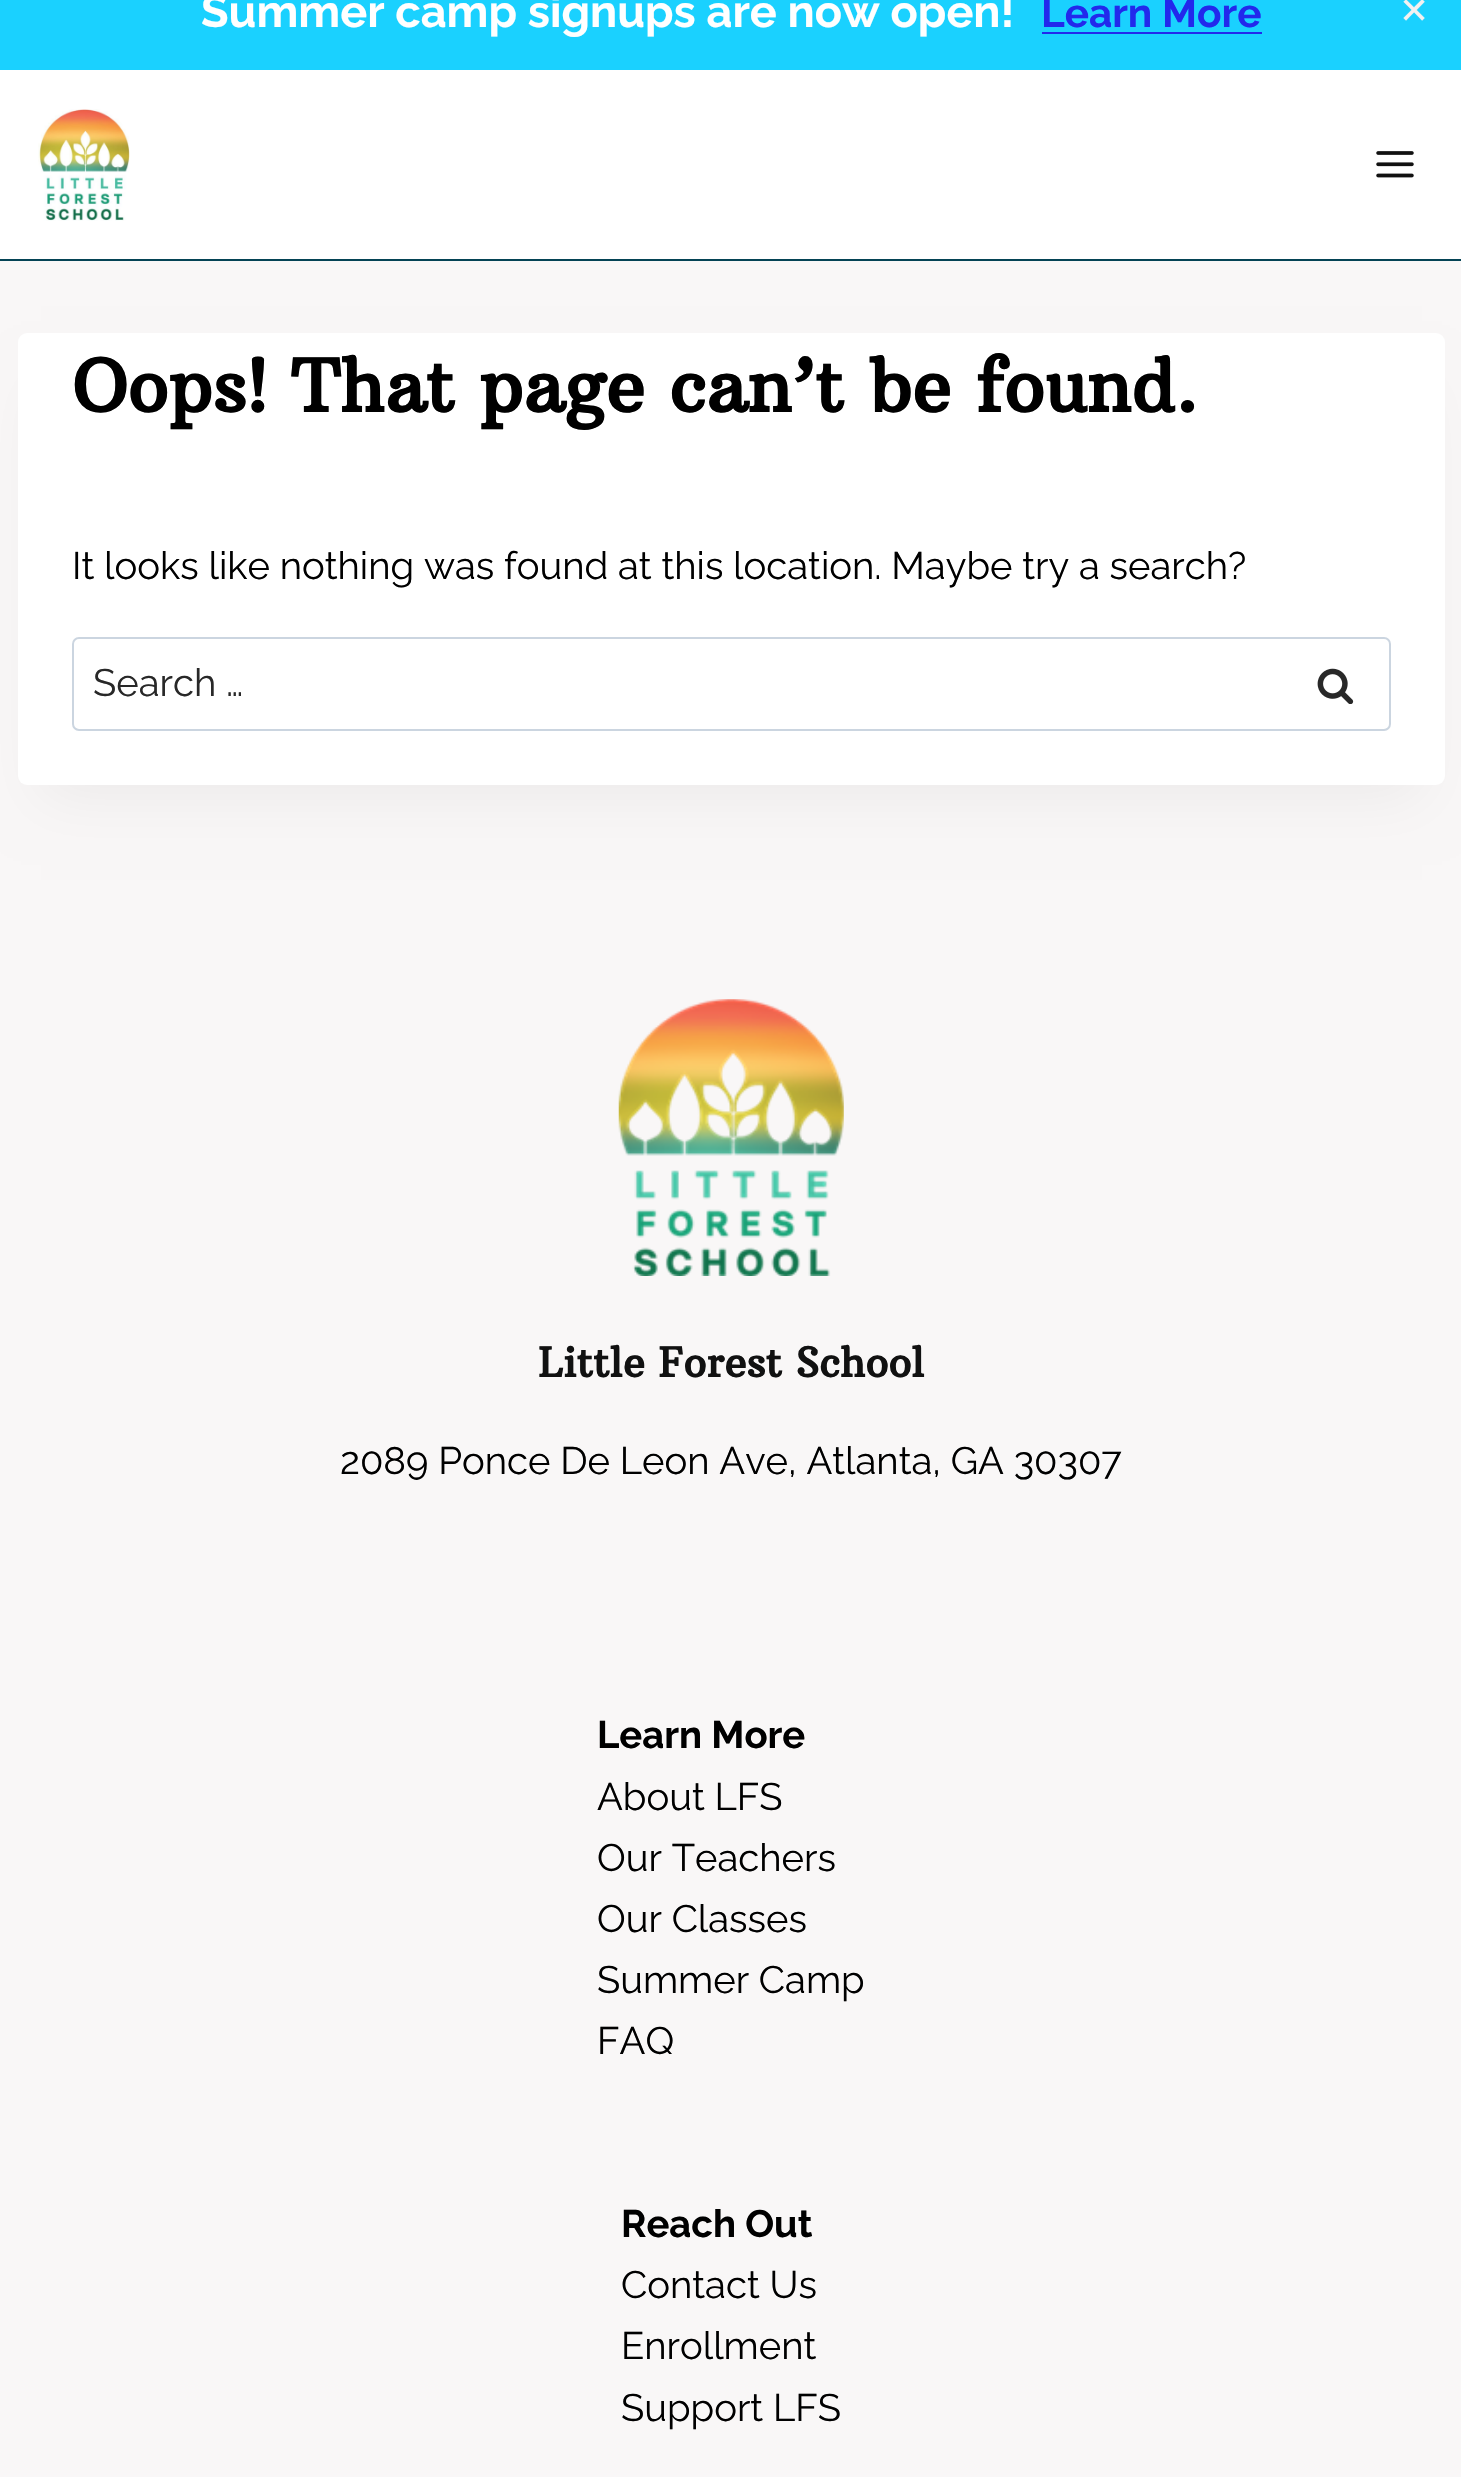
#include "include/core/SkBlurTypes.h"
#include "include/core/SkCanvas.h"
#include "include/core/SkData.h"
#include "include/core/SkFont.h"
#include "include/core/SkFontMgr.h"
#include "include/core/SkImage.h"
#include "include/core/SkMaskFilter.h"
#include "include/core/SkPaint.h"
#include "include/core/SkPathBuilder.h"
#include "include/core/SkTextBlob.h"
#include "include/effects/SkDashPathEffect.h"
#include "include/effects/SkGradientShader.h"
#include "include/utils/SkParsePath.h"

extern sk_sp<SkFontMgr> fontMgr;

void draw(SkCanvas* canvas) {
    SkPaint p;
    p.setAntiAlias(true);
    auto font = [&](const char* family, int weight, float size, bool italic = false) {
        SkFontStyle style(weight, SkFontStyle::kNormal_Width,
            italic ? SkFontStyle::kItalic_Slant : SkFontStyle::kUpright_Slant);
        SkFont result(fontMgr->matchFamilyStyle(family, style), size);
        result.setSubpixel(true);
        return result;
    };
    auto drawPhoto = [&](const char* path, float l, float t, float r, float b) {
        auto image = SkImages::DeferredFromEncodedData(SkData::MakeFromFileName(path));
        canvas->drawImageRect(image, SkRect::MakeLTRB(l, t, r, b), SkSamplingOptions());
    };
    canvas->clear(0xFFF9F7F7);
    p.setColor(0xFFFFFFFF);
    canvas->drawRect(SkRect::MakeLTRB(0, 70, 1461, 259), p);
    p.setColor(0xFF1AD1FF);
    canvas->drawRect(SkRect::MakeLTRB(0, 0, 1461, 70), p);
    auto font1 = font("Raleway", 700, 45);
    p.setColor(0xFFFFFFFF);
    canvas->drawString("Summer camp signups are now open!", 201, 27, font1, p);
    auto font2 = font("Raleway", 700, 40.5f);
    p.setColor(0xFF2229EC);
    canvas->drawString("Learn More", 1041, 27, font2, p);
    canvas->drawRect(SkRect::MakeLTRB(1042, 32, 1262, 34), p);
    auto font3 = font("DejaVu Sans", 400, 36);
    p.setColor(0xFFF4F1F1);
    canvas->drawString("✕", 1399, 23, font3, p);
    p.setColor(0xFF044355);
    canvas->drawRect(SkRect::MakeLTRB(0, 259, 1461, 261), p);
    drawPhoto("media/1.png", 38, 109, 130, 221);
    drawPhoto("media/2.png", 1376, 151, 1414, 178);
    p.setColor(0x0D000000);
    p.setMaskFilter(SkMaskFilter::MakeBlur(kNormal_SkBlurStyle, 28));
    canvas->drawRect(SkRect::MakeLTRB(41, 389, 1422, 797), p);
    p.setMaskFilter(nullptr);
    p.setColor(0xFFFFFFFF);
    canvas->drawRoundRect(SkRect::MakeLTRB(18, 333, 1445, 785), 9, 9, p);
    auto font4 = font("Arbutus Slab", 700, 72);
    p.setColor(0xFF000000);
    canvas->drawString("Oops! That page can’t be found.", 72, 412, font4, p);
    auto font5 = font("Raleway", 400, 38.25f);
    canvas->drawString("It looks like nothing was found at this location. Maybe try a search?", 72, 579, font5, p);
    p.setStyle(SkPaint::kStroke_Style);
    p.setStrokeWidth(2);
    p.setColor(0xFFCBD5E0);
    canvas->drawRoundRect(SkRect::MakeLTRB(73, 638, 1390, 730), 6, 6, p);
    p.setStyle(SkPaint::kFill_Style);
    p.setColor(0xFF282828);
    canvas->drawString("Search …", 93, 696, font5, p);
    drawPhoto("media/3.png", 1317, 668, 1354, 704);
    drawPhoto("media/4.png", 618, 999, 844, 1276);
    auto font6 = font("Arbutus Slab", 700, 40.5f);
    p.setColor(0xFF111111);
    canvas->drawString("Little Forest School", 538, 1377, font6, p);
    p.setColor(0xFF000000);
    canvas->drawString("2089 Ponce De Leon Ave, Atlanta, GA 30307", 340, 1474, font5, p);
    auto font7 = font("Raleway", 700, 38.25f);
    canvas->drawString("Learn More", 597, 1748, font7, p);
    {
        const struct { const char* s; float x, y; } items[] = {
            {"About LFS", 597, 1810},
            {"Our Teachers", 597, 1871},
            {"Our Classes", 597, 1932},
            {"Summer Camp", 597, 1993},
            {"FAQ", 597, 2054},
        };
        for (auto [s, x, y] : items) {
            canvas->drawString(s, x, y, font5, p);
        }
    }
    canvas->drawString("Reach Out", 621, 2237, font7, p);
    {
        const struct { const char* s; float x, y; } items[] = {
            {"Contact Us", 621, 2298},
            {"Enrollment", 621, 2359},
            {"Support LFS", 621, 2421},
        };
        for (auto [s, x, y] : items) {
            canvas->drawString(s, x, y, font5, p);
        }
    }
}
